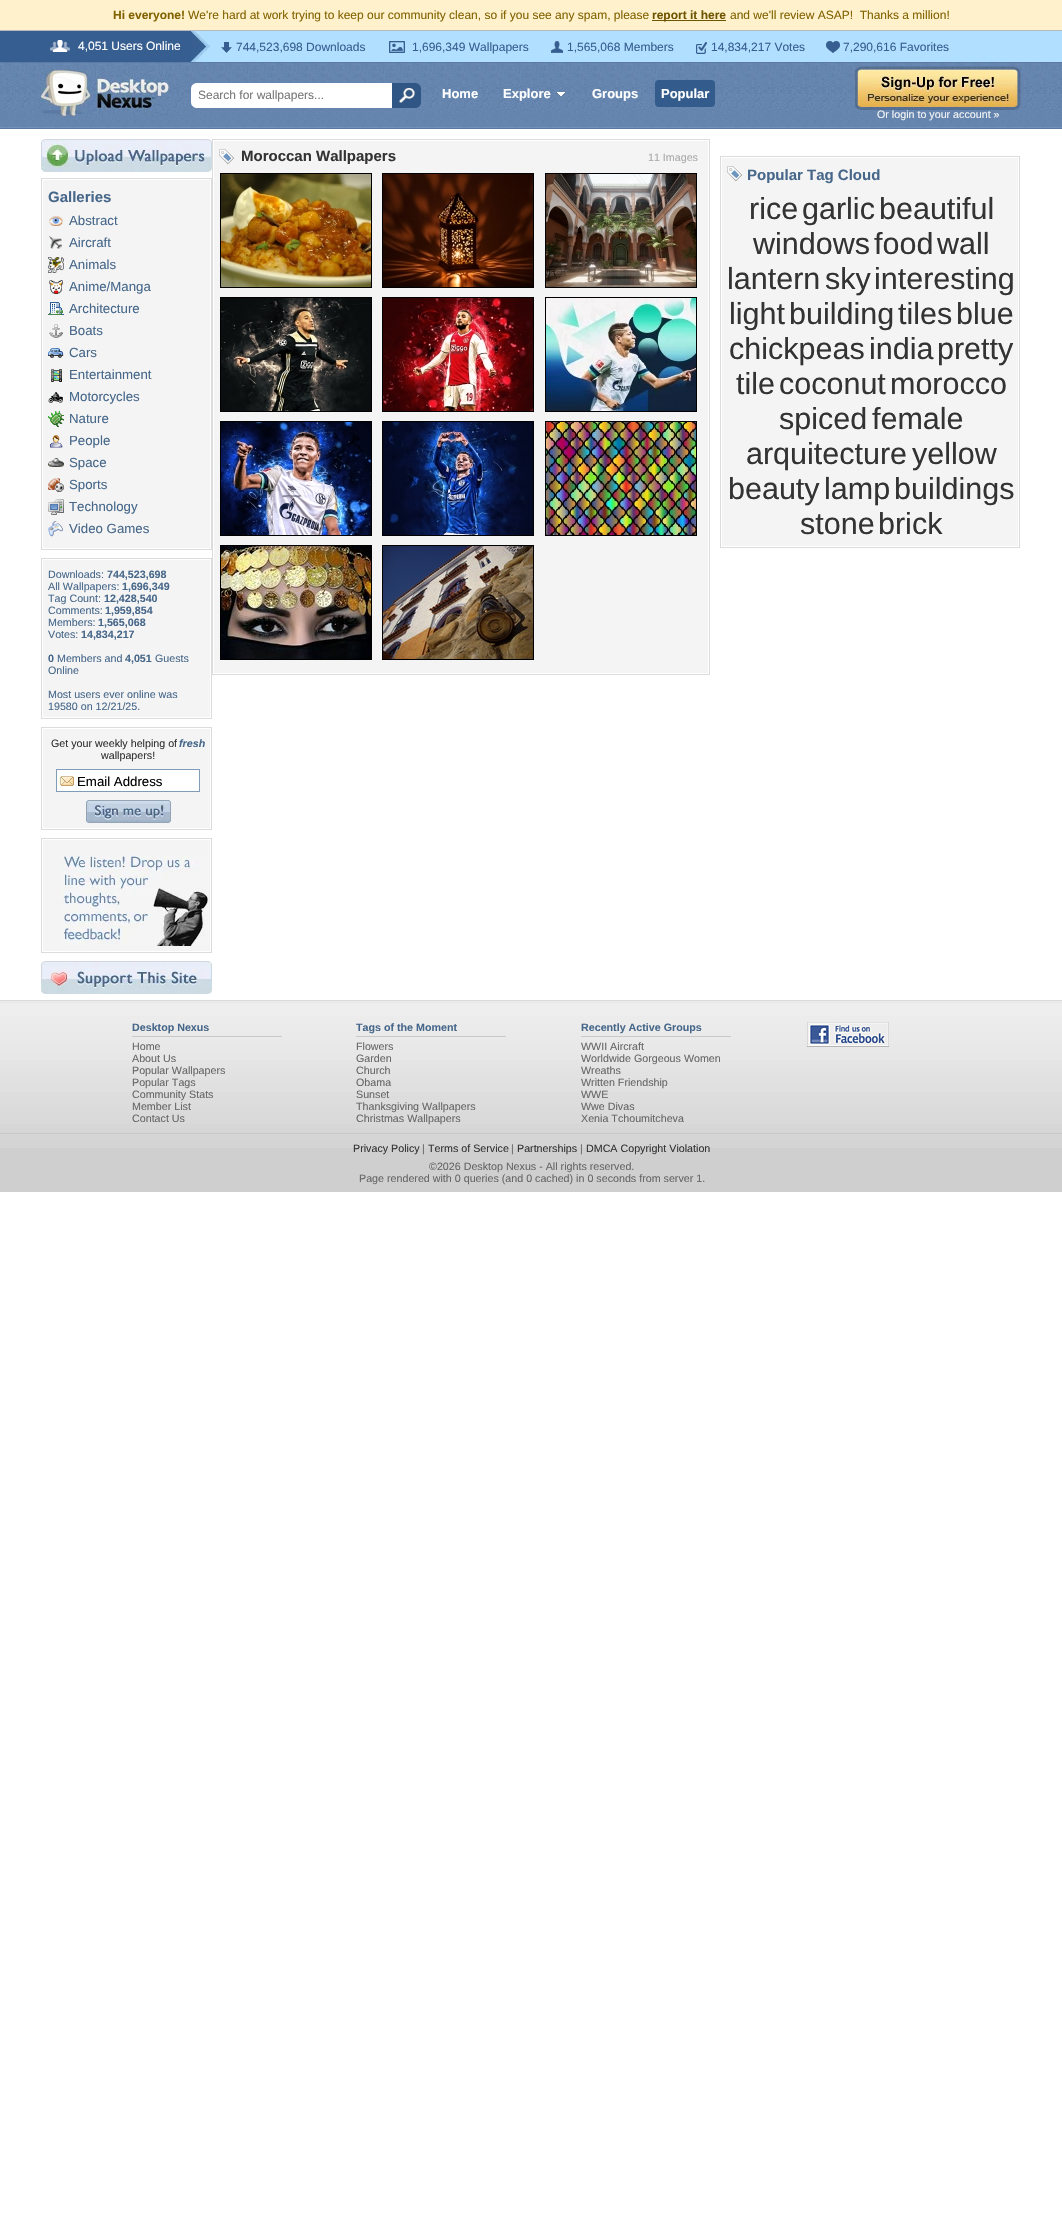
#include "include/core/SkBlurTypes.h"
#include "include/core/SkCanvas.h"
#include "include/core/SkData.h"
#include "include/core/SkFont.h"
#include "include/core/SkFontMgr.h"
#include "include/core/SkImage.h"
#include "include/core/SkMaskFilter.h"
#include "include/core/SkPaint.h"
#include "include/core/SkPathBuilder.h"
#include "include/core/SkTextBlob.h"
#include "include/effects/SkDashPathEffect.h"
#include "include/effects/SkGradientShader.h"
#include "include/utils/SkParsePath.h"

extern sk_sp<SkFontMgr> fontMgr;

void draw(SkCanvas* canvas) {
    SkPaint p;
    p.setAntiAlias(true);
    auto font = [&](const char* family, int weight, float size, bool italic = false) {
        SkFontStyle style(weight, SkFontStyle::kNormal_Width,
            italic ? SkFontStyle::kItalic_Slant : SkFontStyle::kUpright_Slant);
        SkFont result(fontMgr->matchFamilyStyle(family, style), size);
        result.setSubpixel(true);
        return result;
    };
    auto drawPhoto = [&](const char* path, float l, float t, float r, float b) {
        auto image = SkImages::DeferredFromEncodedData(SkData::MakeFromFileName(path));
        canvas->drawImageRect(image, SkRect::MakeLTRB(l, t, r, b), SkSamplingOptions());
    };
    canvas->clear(0xFFFFFFFF);
    p.setColor(0xFFFFF1CB);
    canvas->drawRect(SkRect::MakeLTRB(0, 0, 1062, 30), p);
    auto font1 = font("Liberation Sans", 700, 12);
    p.setColor(0xFF826200);
    canvas->drawString("Hi everyone!", 113, 19, font1, p);
    auto font2 = font("Liberation Sans", 400, 12);
    canvas->drawString("We're hard at work trying to keep our community clean, so if you see any spam, please", 188, 19, font2, p);
    p.setColor(0xFF705500);
    canvas->drawRect(SkRect::MakeLTRB(652, 20, 726, 21), p);
    canvas->drawString("report it here", 652, 19, font1, p);
    p.setColor(0xFF826200);
    canvas->drawString("and we'll review ASAP!  Thanks a million!", 730, 19, font2, p);
    {
        const struct { float l, t, r, b; SkColor color; } items[] = {
            {210, 31, 1062, 62, 0xFFB1DFFF},
            {0, 30, 1062, 31, 0xFFB6BAC0},
            {0, 31, 191, 62, 0xFF375E90},
        };
        for (auto [l, t, r, b, color] : items) {
            p.setColor(color);
            canvas->drawRect(SkRect::MakeLTRB(l, t, r, b), p);
        }
    }
    drawPhoto("media/1.png", 50, 40, 70, 52);
    p.setColor(0xFFFFFFFF);
    canvas->drawString("4,051 Users Online", 78, 50, font2, p);
    drawPhoto("media/2.png", 191, 31, 210, 62);
    drawPhoto("media/3.png", 221, 42, 232, 53);
    p.setColor(0xFF375E90);
    canvas->drawString("744,523,698 Downloads", 236, 51, font2, p);
    drawPhoto("media/4.png", 389, 41, 405, 53);
    canvas->drawString("1,696,349 Wallpapers", 412, 51, font2, p);
    drawPhoto("media/5.png", 551, 41, 563, 53);
    canvas->drawString("1,565,068 Members", 567, 51, font2, p);
    drawPhoto("media/6.png", 696, 42, 707, 54);
    canvas->drawString("14,834,217 Votes", 711, 51, font2, p);
    drawPhoto("media/7.png", 826, 41, 840, 53);
    canvas->drawString("7,290,616 Favorites", 843, 51, font2, p);
    drawPhoto("media/8.png", 0, 62, 1062, 129);
    drawPhoto("media/9.png", 41, 70, 169, 116);
    p.setColor(0xFFFFFFFF);
    canvas->drawPath(SkPathBuilder().moveTo(197, 83).lineTo(408, 83).lineTo(408, 108).lineTo(197, 108).cubicTo(193.5f, 108, 191, 105.5f, 191, 102).lineTo(191, 89).cubicTo(191, 85.5f, 193.5f, 83, 197, 83).close().detach(), p);
    p.setColor(0xFF777777);
    canvas->drawString("Search for wallpapers...", 198, 99, font2, p);
    p.setColor(0xFF305686);
    canvas->drawPath(SkPathBuilder().moveTo(392, 83).lineTo(415, 83).cubicTo(418.5f, 83, 421, 85.5f, 421, 89).lineTo(421, 102).cubicTo(421, 105.5f, 418.5f, 108, 415, 108).lineTo(392, 108).close().detach(), p);
    drawPhoto("media/10.png", 399, 88, 415, 103);
    auto font3 = font("Liberation Sans", 700, 13);
    p.setColor(0xFFFFFFFF);
    canvas->drawString("Home", 442, 98, font3, p);
    canvas->drawString("Explore", 503, 98, font3, p);
    drawPhoto("media/11.png", 556, 92, 566, 97);
    canvas->drawString("Groups", 592, 98, font3, p);
    p.setColor(0xFF335B8B);
    canvas->drawRoundRect(SkRect::MakeLTRB(655, 80, 715, 107), 4, 4, p);
    p.setColor(0xFFFFFFFF);
    canvas->drawString("Popular", 661, 98, font3, p);
    drawPhoto("media/12.png", 855, 66, 1021, 110);
    auto font4 = font("Liberation Sans", 400, 10.7f);
    p.setColor(0xFFF4F4F4);
    canvas->drawString("Or login to your account »", 877, 118, font4, p);
    p.setStyle(SkPaint::kStroke_Style);
    p.setStrokeWidth(1);
    p.setColor(0xFFDCDCDC);
    canvas->drawRect(SkRect::MakeLTRB(212.5f, 139.5f, 709.5f, 674.5f), p);
    p.setStyle(SkPaint::kFill_Style);
    p.setColor(0xFFF4F4F4);
    canvas->drawRect(SkRect::MakeLTRB(214, 141, 708, 673), p);
    drawPhoto("media/13.png", 219, 149, 234, 165);
    auto font5 = font("Liberation Sans", 700, 15);
    p.setColor(0xFF333333);
    canvas->drawString("Moroccan Wallpapers", 241, 161, font5, p);
    p.setColor(0xFFAAAAAA);
    canvas->drawString("11 Images", 648, 161, font4, p);
    p.setStyle(SkPaint::kStroke_Style);
    p.setColor(0xFF000000);
    canvas->drawRect(SkRect::MakeLTRB(220.5f, 173.5f, 371.5f, 287.5f), p);
    drawPhoto("media/14.png", 221, 174, 371, 287);
    canvas->drawRect(SkRect::MakeLTRB(382.5f, 173.5f, 533.5f, 287.5f), p);
    drawPhoto("media/15.png", 383, 174, 533, 287);
    canvas->drawRect(SkRect::MakeLTRB(545.5f, 173.5f, 696.5f, 287.5f), p);
    drawPhoto("media/16.png", 546, 174, 696, 287);
    canvas->drawRect(SkRect::MakeLTRB(220.5f, 297.5f, 371.5f, 411.5f), p);
    drawPhoto("media/17.png", 221, 298, 371, 411);
    canvas->drawRect(SkRect::MakeLTRB(382.5f, 297.5f, 533.5f, 411.5f), p);
    drawPhoto("media/18.png", 383, 298, 533, 411);
    canvas->drawRect(SkRect::MakeLTRB(545.5f, 297.5f, 696.5f, 411.5f), p);
    drawPhoto("media/19.png", 546, 298, 696, 411);
    canvas->drawRect(SkRect::MakeLTRB(220.5f, 421.5f, 371.5f, 535.5f), p);
    drawPhoto("media/20.png", 221, 422, 371, 535);
    canvas->drawRect(SkRect::MakeLTRB(382.5f, 421.5f, 533.5f, 535.5f), p);
    drawPhoto("media/21.png", 383, 422, 533, 535);
    canvas->drawRect(SkRect::MakeLTRB(545.5f, 421.5f, 696.5f, 535.5f), p);
    drawPhoto("media/22.png", 546, 422, 696, 535);
    canvas->drawRect(SkRect::MakeLTRB(220.5f, 545.5f, 371.5f, 659.5f), p);
    drawPhoto("media/23.png", 221, 546, 371, 659);
    canvas->drawRect(SkRect::MakeLTRB(382.5f, 545.5f, 533.5f, 659.5f), p);
    drawPhoto("media/24.png", 383, 546, 533, 659);
    drawPhoto("media/25.png", 41, 139, 212, 172);
    p.setColor(0xFFDCDCDC);
    canvas->drawRect(SkRect::MakeLTRB(41.5f, 178.5f, 211.5f, 549.5f), p);
    p.setStyle(SkPaint::kFill_Style);
    p.setColor(0xFFF4F4F4);
    canvas->drawRect(SkRect::MakeLTRB(43, 180, 210, 548), p);
    p.setColor(0xFF46678A);
    canvas->drawString("Galleries", 48, 202, font5, p);
    drawPhoto("media/26.png", 49, 216, 63, 226);
    auto font6 = font("Liberation Sans", 400, 13.25f);
    canvas->drawString("Abstract", 69, 225, font6, p);
    drawPhoto("media/27.png", 49, 236, 62, 249);
    canvas->drawString("Aircraft", 69, 247, font6, p);
    drawPhoto("media/28.png", 48, 257, 64, 273);
    canvas->drawString("Animals", 69, 269, font6, p);
    drawPhoto("media/29.png", 49, 280, 63, 294);
    canvas->drawString("Anime/Manga", 69, 291, font6, p);
    drawPhoto("media/30.png", 48, 302, 64, 315);
    canvas->drawString("Architecture", 69, 313, font6, p);
    drawPhoto("media/31.png", 49, 324, 63, 338);
    canvas->drawString("Boats", 69, 335, font6, p);
    drawPhoto("media/32.png", 48, 348, 64, 358);
    canvas->drawString("Cars", 69, 357, font6, p);
    drawPhoto("media/33.png", 51, 369, 62, 382);
    canvas->drawString("Entertainment", 69, 379, font6, p);
    drawPhoto("media/34.png", 48, 391, 64, 403);
    canvas->drawString("Motorcycles", 69, 401, font6, p);
    drawPhoto("media/35.png", 48, 411, 64, 427);
    canvas->drawString("Nature", 69, 423, font6, p);
    drawPhoto("media/36.png", 50, 435, 63, 448);
    canvas->drawString("People", 69, 445, font6, p);
    drawPhoto("media/37.png", 48, 458, 64, 467);
    canvas->drawString("Space", 69, 467, font6, p);
    drawPhoto("media/38.png", 48, 478, 64, 492);
    canvas->drawString("Sports", 69, 489, font6, p);
    drawPhoto("media/39.png", 48, 499, 64, 515);
    canvas->drawString("Technology", 69, 511, font6, p);
    drawPhoto("media/40.png", 48, 521, 63, 537);
    canvas->drawString("Video Games", 69, 533, font6, p);
    p.setStyle(SkPaint::kStroke_Style);
    p.setColor(0xFFDCDCDC);
    canvas->drawRect(SkRect::MakeLTRB(41.5f, 558.5f, 211.5f, 718.5f), p);
    p.setStyle(SkPaint::kFill_Style);
    p.setColor(0xFFF4F4F4);
    canvas->drawRect(SkRect::MakeLTRB(43, 560, 210, 717), p);
    p.setColor(0xFF46678A);
    canvas->drawString("Downloads:", 48, 578, font4, p);
    auto font7 = font("Liberation Sans", 700, 10.7f);
    canvas->drawString("744,523,698", 107, 578, font7, p);
    canvas->drawString("All Wallpapers:", 48, 590, font4, p);
    canvas->drawString("1,696,349", 122, 590, font7, p);
    canvas->drawString("Tag Count:", 48, 602, font4, p);
    canvas->drawString("12,428,540", 104, 602, font7, p);
    canvas->drawString("Comments:", 48, 614, font4, p);
    canvas->drawString("1,959,854", 105, 614, font7, p);
    canvas->drawString("Members:", 48, 626, font4, p);
    canvas->drawString("1,565,068", 98, 626, font7, p);
    canvas->drawString("Votes:", 48, 638, font4, p);
    canvas->drawString("14,834,217", 81, 638, font7, p);
    canvas->drawString("0", 48, 662, font7, p);
    canvas->drawString("Members and", 57, 662, font4, p);
    canvas->drawString("4,051", 125, 662, font7, p);
    {
        const struct { const char* s; float x, y; } items[] = {
            {"Guests", 155, 662},
            {"Online", 48, 674},
            {"Most users ever online was", 48, 698},
            {"19580 on 12/21/25.", 48, 710},
        };
        for (auto [s, x, y] : items) {
            canvas->drawString(s, x, y, font4, p);
        }
    }
    p.setStyle(SkPaint::kStroke_Style);
    p.setColor(0xFFDCDCDC);
    canvas->drawRect(SkRect::MakeLTRB(41.5f, 727.5f, 211.5f, 829.5f), p);
    p.setStyle(SkPaint::kFill_Style);
    p.setColor(0xFFF4F4F4);
    canvas->drawRect(SkRect::MakeLTRB(43, 729, 210, 828), p);
    p.setColor(0xFF333333);
    canvas->drawString("Get your weekly helping of", 51, 747, font4, p);
    auto font8 = font("Liberation Sans", 700, 10.7f, true);
    p.setColor(0xFF46678A);
    canvas->drawString("fresh", 179, 747, font8, p);
    p.setColor(0xFF333333);
    canvas->drawString("wallpapers!", 101, 759, font4, p);
    p.setColor(0xFFFFFFFF);
    canvas->drawRect(SkRect::MakeLTRB(57, 770, 199, 791), p);
    drawPhoto("media/41.png", 57, 776, 74, 786);
    p.setStyle(SkPaint::kStroke_Style);
    p.setColor(0xFF7F9DB9);
    canvas->drawRect(SkRect::MakeLTRB(56.5f, 769.5f, 199.5f, 791.5f), p);
    p.setStyle(SkPaint::kFill_Style);
    p.setColor(0xFF000000);
    canvas->drawString("Email Address", 77, 786, font6, p);
    drawPhoto("media/42.png", 86, 800, 171, 823);
    p.setStyle(SkPaint::kStroke_Style);
    p.setColor(0xFFDCDCDC);
    canvas->drawRect(SkRect::MakeLTRB(41.5f, 838.5f, 211.5f, 952.5f), p);
    p.setStyle(SkPaint::kFill_Style);
    p.setColor(0xFFF4F4F4);
    canvas->drawRect(SkRect::MakeLTRB(43, 840, 210, 951), p);
    drawPhoto("media/43.png", 61, 855, 208, 946);
    drawPhoto("media/44.png", 41, 961, 212, 994);
    p.setStyle(SkPaint::kStroke_Style);
    p.setColor(0xFFDCDCDC);
    canvas->drawRect(SkRect::MakeLTRB(720.5f, 156.5f, 1019.5f, 547.5f), p);
    p.setStyle(SkPaint::kFill_Style);
    p.setColor(0xFFF4F4F4);
    canvas->drawRect(SkRect::MakeLTRB(722, 158, 1018, 546), p);
    drawPhoto("media/13.png", 727, 166, 742, 182);
    p.setColor(0xFF46678A);
    canvas->drawString("Popular Tag Cloud", 747, 180, font5, p);
    auto font9 = font("Liberation Sans", 400, 30.5f);
    p.setColor(0xFF333333);
    {
        const struct { const char* s; float x, y; } items[] = {
            {"rice", 749, 219},
            {"garlic", 802, 219},
            {"beautiful", 879, 219},
            {"windows", 753, 254},
            {"food", 874, 254},
            {"wall", 937, 254},
            {"lantern", 727, 289},
            {"sky", 825, 289},
            {"interesting", 874, 289},
            {"light", 729, 324},
            {"building", 789, 324},
            {"tiles", 898, 324},
            {"blue", 956, 324},
            {"chickpeas", 729, 359},
            {"india", 869, 359},
            {"pretty", 937, 359},
            {"tile", 736, 394},
            {"coconut", 779, 394},
            {"morocco", 890, 394},
            {"spiced", 779, 429},
            {"female", 872, 429},
            {"arquitecture", 746, 464},
            {"yellow", 912, 464},
            {"beauty", 728, 499},
            {"lamp", 824, 499},
            {"buildings", 894, 499},
            {"stone", 800, 534},
            {"brick", 878, 534},
        };
        for (auto [s, x, y] : items) {
            canvas->drawString(s, x, y, font9, p);
        }
    }
    p.setColor(0xFFCFCFCF);
    canvas->drawRect(SkRect::MakeLTRB(0, 1148, 1062, 1192), p);
    drawPhoto("media/45.png", 0, 1000, 1062, 1148);
    p.setColor(0xFF46678A);
    canvas->drawString("Desktop Nexus", 132, 1031, font7, p);
    p.setColor(0xFFC9C9C9);
    canvas->drawRect(SkRect::MakeLTRB(132, 1036, 282, 1037), p);
    p.setColor(0xFF666666);
    {
        const struct { const char* s; float x, y; } items[] = {
            {"Home", 132, 1050},
            {"About Us", 132, 1062},
            {"Popular Wallpapers", 132, 1074},
            {"Popular Tags", 132, 1086},
            {"Community Stats", 132, 1098},
            {"Member List", 132, 1110},
            {"Contact Us", 132, 1122},
        };
        for (auto [s, x, y] : items) {
            canvas->drawString(s, x, y, font4, p);
        }
    }
    p.setColor(0xFF46678A);
    canvas->drawString("Tags of the Moment", 356, 1031, font7, p);
    p.setColor(0xFFC9C9C9);
    canvas->drawRect(SkRect::MakeLTRB(356, 1036, 506, 1037), p);
    p.setColor(0xFF666666);
    {
        const struct { const char* s; float x, y; } items[] = {
            {"Flowers", 356, 1050},
            {"Garden", 356, 1062},
            {"Church", 356, 1074},
            {"Obama", 356, 1086},
            {"Sunset", 356, 1098},
            {"Thanksgiving Wallpapers", 356, 1110},
            {"Christmas Wallpapers", 356, 1122},
        };
        for (auto [s, x, y] : items) {
            canvas->drawString(s, x, y, font4, p);
        }
    }
    p.setColor(0xFF46678A);
    canvas->drawString("Recently Active Groups", 581, 1031, font7, p);
    p.setColor(0xFFC9C9C9);
    canvas->drawRect(SkRect::MakeLTRB(581, 1036, 731, 1037), p);
    p.setColor(0xFF666666);
    {
        const struct { const char* s; float x, y; } items[] = {
            {"WWII Aircraft", 581, 1050},
            {"Worldwide Gorgeous Women", 581, 1062},
            {"Wreaths", 581, 1074},
            {"Written Friendship", 581, 1086},
            {"WWE", 581, 1098},
            {"Wwe Divas", 581, 1110},
            {"Xenia Tchoumitcheva", 581, 1122},
        };
        for (auto [s, x, y] : items) {
            canvas->drawString(s, x, y, font4, p);
        }
    }
    drawPhoto("media/46.png", 807, 1022, 889, 1047);
    p.setColor(0xFFC9C9C9);
    canvas->drawRect(SkRect::MakeLTRB(0, 1133, 1062, 1134), p);
    p.setColor(0xFF333333);
    canvas->drawString("Privacy Policy", 353, 1152, font4, p);
    p.setColor(0xFF666666);
    canvas->drawString("|", 422, 1152, font4, p);
    p.setColor(0xFF333333);
    canvas->drawString("Terms of Service", 428, 1152, font4, p);
    p.setColor(0xFF666666);
    canvas->drawString("|", 511, 1152, font4, p);
    p.setColor(0xFF333333);
    canvas->drawString("Partnerships", 517, 1152, font4, p);
    p.setColor(0xFF666666);
    canvas->drawString("|", 580, 1152, font4, p);
    p.setColor(0xFF333333);
    canvas->drawString("DMCA Copyright Violation", 586, 1152, font4, p);
    p.setColor(0xFF666666);
    canvas->drawString("©2026 Desktop Nexus - All rights reserved.", 429, 1170, font4, p);
    canvas->drawString("Page rendered with 0 queries (and 0 cached) in 0 seconds from server 1.", 359, 1182, font4, p);
}
